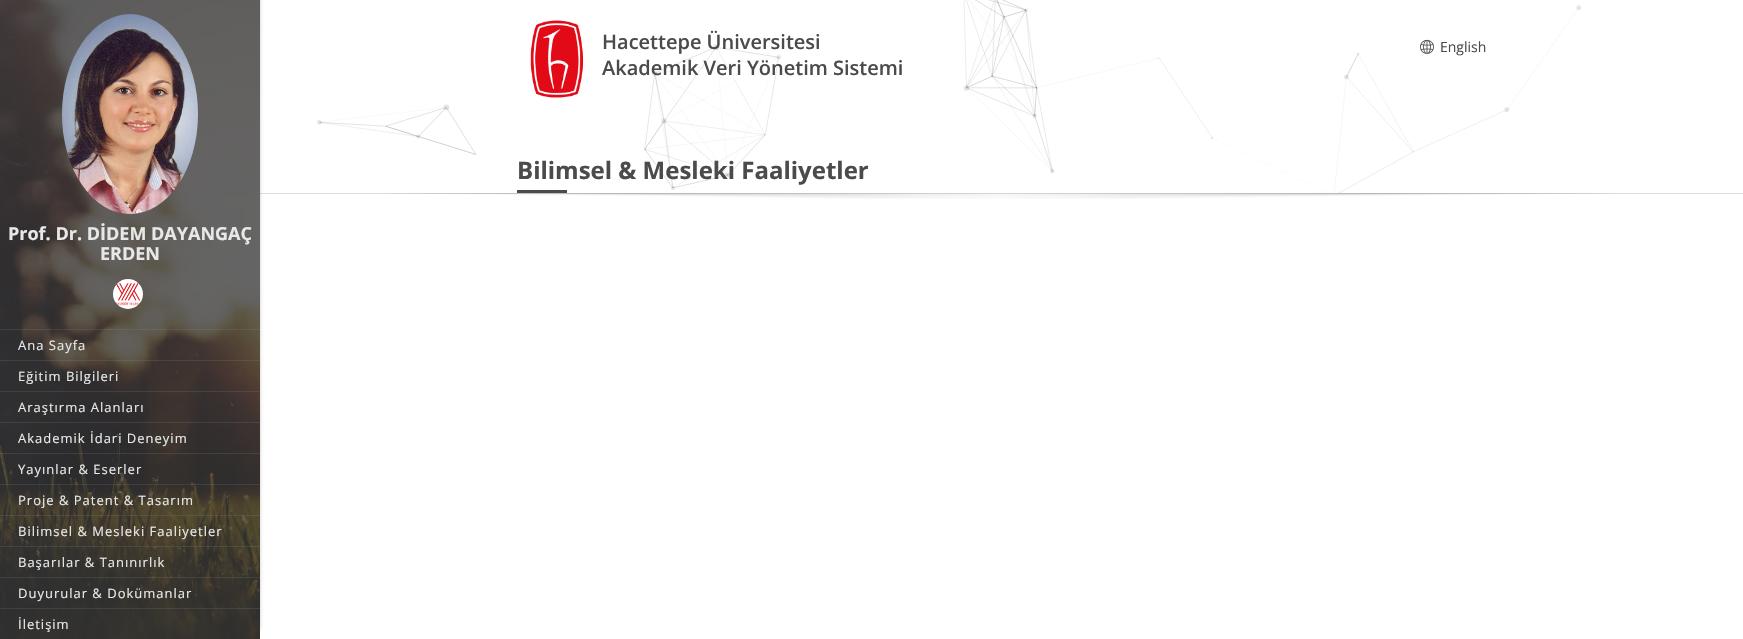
#include "include/core/SkBlurTypes.h"
#include "include/core/SkCanvas.h"
#include "include/core/SkData.h"
#include "include/core/SkFont.h"
#include "include/core/SkFontMgr.h"
#include "include/core/SkImage.h"
#include "include/core/SkMaskFilter.h"
#include "include/core/SkPaint.h"
#include "include/core/SkPathBuilder.h"
#include "include/core/SkTextBlob.h"
#include "include/effects/SkDashPathEffect.h"
#include "include/effects/SkGradientShader.h"
#include "include/utils/SkParsePath.h"

extern sk_sp<SkFontMgr> fontMgr;

void draw(SkCanvas* canvas) {
    SkPaint p;
    p.setAntiAlias(true);
    auto font = [&](const char* family, int weight, float size, bool italic = false) {
        SkFontStyle style(weight, SkFontStyle::kNormal_Width,
            italic ? SkFontStyle::kItalic_Slant : SkFontStyle::kUpright_Slant);
        SkFont result(fontMgr->matchFamilyStyle(family, style), size);
        result.setSubpixel(true);
        return result;
    };
    auto drawTracked = [&](const char* s, float x, float y, const SkFont& font, const SkPaint& ink, float letter, float word) {
        std::vector<SkGlyphID> glyphs(font.countText(s, strlen(s), SkTextEncoding::kUTF8));
        std::vector<float> xs(glyphs.size());
        font.textToGlyphs(s, strlen(s), SkTextEncoding::kUTF8, glyphs);
        font.getXPos(glyphs, xs, x);
        float extra = 0;
        for (size_t i = 0; i < glyphs.size(); i++) {
            xs[i] += extra;
            extra += letter + word * (glyphs[i] == font.unicharToGlyph(' '));
        }
        canvas->drawTextBlob(SkTextBlob::MakeFromPosHGlyphs(glyphs, xs, y, font), 0, 0, ink);
    };
    auto drawPhoto = [&](const char* path, float l, float t, float r, float b) {
        auto image = SkImages::DeferredFromEncodedData(SkData::MakeFromFileName(path));
        canvas->drawImageRect(image, SkRect::MakeLTRB(l, t, r, b), SkSamplingOptions());
    };
    canvas->clear(0xFFFFFFFF);
    p.setColor(0xFFDEDEDE);
    canvas->drawRect(SkRect::MakeLTRB(260, 193, 1743, 194), p);
    drawPhoto("media/1.png", 317, 0, 1581, 193);
    drawPhoto("media/2.png", 530, 20, 583, 98);
    auto font1 = font("Open Sans", 600, 20);
    p.setColor(0xFF4B4B4B);
    canvas->drawString("Hacettepe Üniversitesi", 602, 49, font1, p);
    canvas->drawString("Akademik Veri Yönetim Sistemi", 602, 75, font1, p);
    drawPhoto("media/3.png", 1420, 39, 1434, 54);
    auto font2 = font("Open Sans", 400, 14);
    canvas->drawString("English", 1440, 52, font2, p);
    auto font3 = font("Open Sans", 700, 24);
    canvas->drawString("Bilimsel & Mesleki Faaliyetler", 517, 179, font3, p);
    canvas->drawRect(SkRect::MakeLTRB(517, 190, 567, 193), p);
    drawPhoto("media/4.png", 386, 193, 1614, 199);
    p.setColor(0x80000000);
    p.setMaskFilter(SkMaskFilter::MakeBlur(kNormal_SkBlurStyle, 2.5f));
    canvas->drawRect(SkRect::MakeLTRB(6, -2, 258, 629), p);
    p.setMaskFilter(nullptr);
    drawPhoto("media/5.png", 0, 0, 260, 639);
    drawPhoto("media/6.png", 62, 14, 198, 214);
    auto font4 = font("Open Sans", 700, 18);
    p.setColor(0xFFE8E8E8);
    canvas->drawString("Prof. Dr. DİDEM DAYANGAÇ", 8, 240, font4, p);
    canvas->drawString("ERDEN", 100, 260, font4, p);
    drawPhoto("media/7.png", 113, 279, 143, 309);
    p.setColor(0x2E929292);
    canvas->drawRect(SkRect::MakeLTRB(0, 329, 260, 330), p);
    canvas->drawRect(SkRect::MakeLTRB(0, 360, 260, 361), p);
    auto font5 = font("Open Sans", 400, 13);
    p.setColor(0xFFE8E8E8);
    drawTracked("Ana Sayfa", 18, 350, font5, p, 1, 0);
    p.setColor(0x2E929292);
    canvas->drawRect(SkRect::MakeLTRB(0, 391, 260, 392), p);
    p.setColor(0xFFE8E8E8);
    drawTracked("Eğitim Bilgileri", 18, 381, font5, p, 1, 0);
    p.setColor(0x2E929292);
    canvas->drawRect(SkRect::MakeLTRB(0, 422, 260, 423), p);
    p.setColor(0xFFE8E8E8);
    drawTracked("Araştırma Alanları", 18, 412, font5, p, 1, 0);
    p.setColor(0x2E929292);
    canvas->drawRect(SkRect::MakeLTRB(0, 453, 260, 454), p);
    p.setColor(0xFFE8E8E8);
    drawTracked("Akademik İdari Deneyim", 18, 443, font5, p, 1, 0);
    p.setColor(0x2E929292);
    canvas->drawRect(SkRect::MakeLTRB(0, 484, 260, 485), p);
    p.setColor(0xFFE8E8E8);
    drawTracked("Yayınlar & Eserler", 18, 474, font5, p, 1, 0);
    p.setColor(0x2E929292);
    canvas->drawRect(SkRect::MakeLTRB(0, 515, 260, 516), p);
    p.setColor(0xFFE8E8E8);
    drawTracked("Proje & Patent & Tasarım", 18, 505, font5, p, 1, 0);
    p.setColor(0x2E929292);
    canvas->drawRect(SkRect::MakeLTRB(0, 546, 260, 547), p);
    p.setColor(0xFFE8E8E8);
    drawTracked("Bilimsel & Mesleki Faaliyetler", 18, 536, font5, p, 1, 0);
    p.setColor(0x2E929292);
    canvas->drawRect(SkRect::MakeLTRB(0, 577, 260, 578), p);
    p.setColor(0xFFE8E8E8);
    drawTracked("Başarılar & Tanınırlık", 18, 567, font5, p, 1, 0);
    p.setColor(0x2E929292);
    canvas->drawRect(SkRect::MakeLTRB(0, 608, 260, 609), p);
    p.setColor(0xFFE8E8E8);
    drawTracked("Duyurular & Dokümanlar", 18, 598, font5, p, 1, 0);
    drawTracked("İletişim", 18, 629, font5, p, 1, 0);
}
